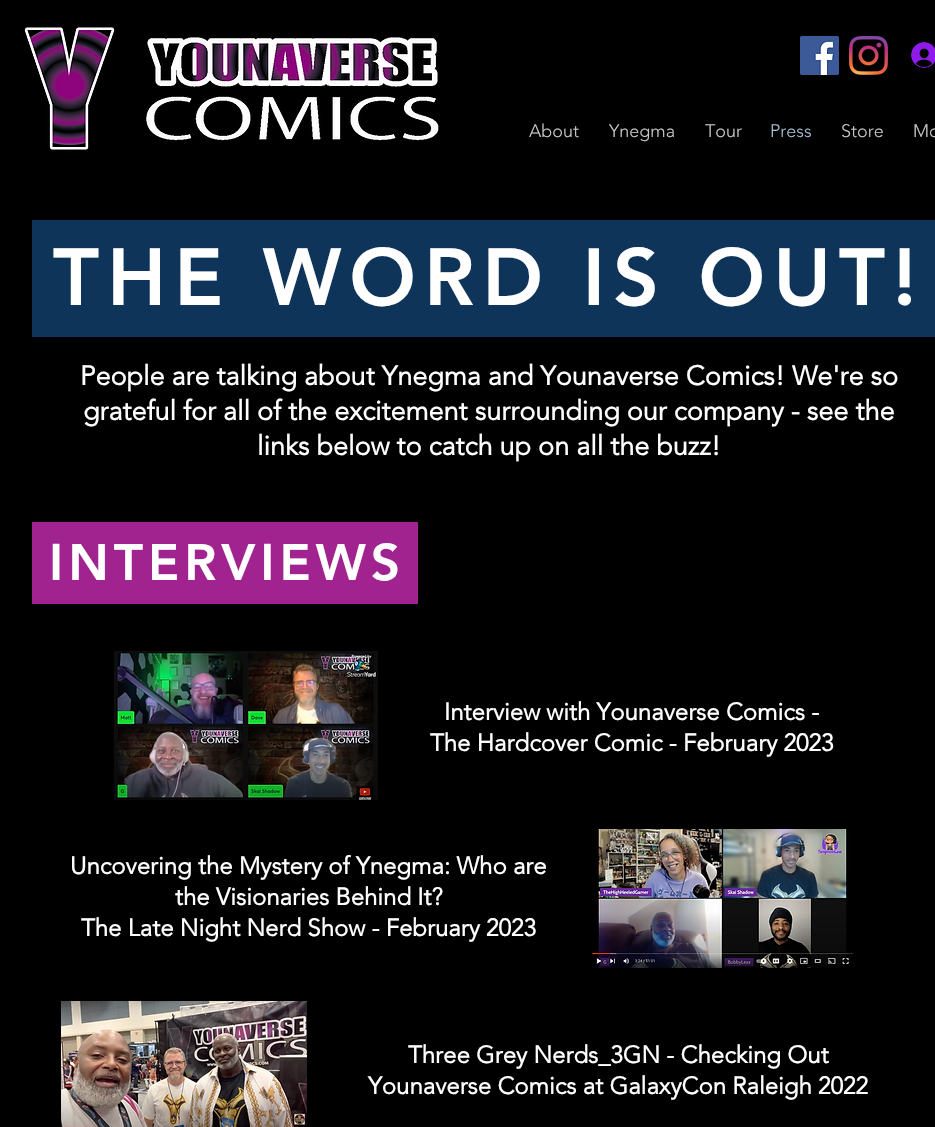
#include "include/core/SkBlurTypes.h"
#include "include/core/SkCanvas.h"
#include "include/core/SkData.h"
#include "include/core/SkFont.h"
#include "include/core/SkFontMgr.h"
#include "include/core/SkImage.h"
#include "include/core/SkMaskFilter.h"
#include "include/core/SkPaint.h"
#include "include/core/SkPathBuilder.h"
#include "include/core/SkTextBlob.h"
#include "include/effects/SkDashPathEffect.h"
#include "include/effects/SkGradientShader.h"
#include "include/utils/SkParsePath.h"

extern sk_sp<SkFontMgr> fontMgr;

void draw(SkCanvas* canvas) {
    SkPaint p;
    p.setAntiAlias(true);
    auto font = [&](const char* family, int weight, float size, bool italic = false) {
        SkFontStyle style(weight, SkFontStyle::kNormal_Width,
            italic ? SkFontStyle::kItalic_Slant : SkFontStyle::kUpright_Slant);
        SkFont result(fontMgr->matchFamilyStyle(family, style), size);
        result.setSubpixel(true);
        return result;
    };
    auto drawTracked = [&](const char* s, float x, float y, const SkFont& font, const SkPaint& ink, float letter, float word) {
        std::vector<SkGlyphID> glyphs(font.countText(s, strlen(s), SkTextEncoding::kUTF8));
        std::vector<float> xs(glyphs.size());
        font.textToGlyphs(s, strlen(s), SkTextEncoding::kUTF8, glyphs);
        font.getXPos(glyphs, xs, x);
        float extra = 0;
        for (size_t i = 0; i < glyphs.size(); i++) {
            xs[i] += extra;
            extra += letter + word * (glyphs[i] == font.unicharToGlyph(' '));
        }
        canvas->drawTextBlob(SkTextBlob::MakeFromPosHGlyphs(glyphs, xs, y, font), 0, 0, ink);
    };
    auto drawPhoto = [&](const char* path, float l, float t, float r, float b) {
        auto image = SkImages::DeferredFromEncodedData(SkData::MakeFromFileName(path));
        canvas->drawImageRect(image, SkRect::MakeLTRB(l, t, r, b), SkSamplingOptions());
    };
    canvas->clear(0xFF000000);
    drawPhoto("media/1.png", 24, 27, 115, 150);
    drawPhoto("media/2.png", 145, 35, 439, 141);
    drawPhoto("media/3.png", 800, 36, 839, 75);
    drawPhoto("media/4.png", 849, 36, 888, 75);
    drawPhoto("media/5.png", 911, 42, 935, 68);
    auto font1 = font("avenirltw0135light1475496", 300, 18);
    p.setColor(0xFFC7C7C7);
    {
        const struct { const char* s; float x, y; } items[] = {
            {"About", 529, 137},
            {"Ynegma", 609, 137},
            {"Tour", 705, 137},
        };
        for (auto [s, x, y] : items) {
            canvas->drawString(s, x, y, font1, p);
        }
    }
    p.setColor(0xFFA9BFD6);
    canvas->drawString("Press", 770, 137, font1, p);
    p.setColor(0xFFC7C7C7);
    canvas->drawString("Store", 841, 137, font1, p);
    canvas->drawString("Mo", 913, 137, font1, p);
    p.setColor(0xFF0E345A);
    canvas->drawRect(SkRect::MakeLTRB(32, 220, 935, 337), p);
    auto font2 = font("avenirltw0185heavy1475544", 900, 80);
    p.setColor(0xFFFFFFFF);
    drawTracked("THE WORD IS OUT!", 53, 305, font2, p, 8, 0);
    auto font3 = font("avenirltw0135light1475496", 700, 27);
    {
        const struct { const char* s; float x, y; } items[] = {
            {"People are talking about Ynegma and Younaverse Comics! We're so", 80, 385},
            {"grateful for all of the excitement surrounding our company - see the", 83, 420},
            {"links below to catch up on all the buzz!", 257, 455},
        };
        for (auto [s, x, y] : items) {
            canvas->drawString(s, x, y, font3, p);
        }
    }
    p.setColor(0xFFA1238F);
    canvas->drawRect(SkRect::MakeLTRB(32, 522, 418, 604), p);
    auto font4 = font("avenirltw0185heavy1475544", 900, 51);
    p.setColor(0xFFFFFFFF);
    drawTracked("INTERVIEWS", 49, 580, font4, p, 5, 0);
    drawPhoto("media/6.png", 114, 651, 378, 800);
    auto font5 = font("avenirltw0135light1475496", 700, 24);
    {
        const struct { const char* s; float x, y; } items[] = {
            {"Interview with Younaverse Comics -", 444, 720},
            {"The Hardcover Comic - February 2023", 430, 751},
            {"Uncovering the Mystery of Ynegma: Who are", 70, 874},
            {"the Visionaries Behind It?", 175, 905},
            {"The Late Night Nerd Show - February 2023", 81, 936},
        };
        for (auto [s, x, y] : items) {
            canvas->drawString(s, x, y, font5, p);
        }
    }
    drawPhoto("media/7.png", 592, 829, 853, 968);
    drawPhoto("media/8.png", 61, 1001, 307, 1127);
    canvas->drawString("Three Grey Nerds_3GN - Checking Out", 408, 1063, font5, p);
    canvas->drawString("Younaverse Comics at GalaxyCon Raleigh 2022", 368, 1094, font5, p);
}
